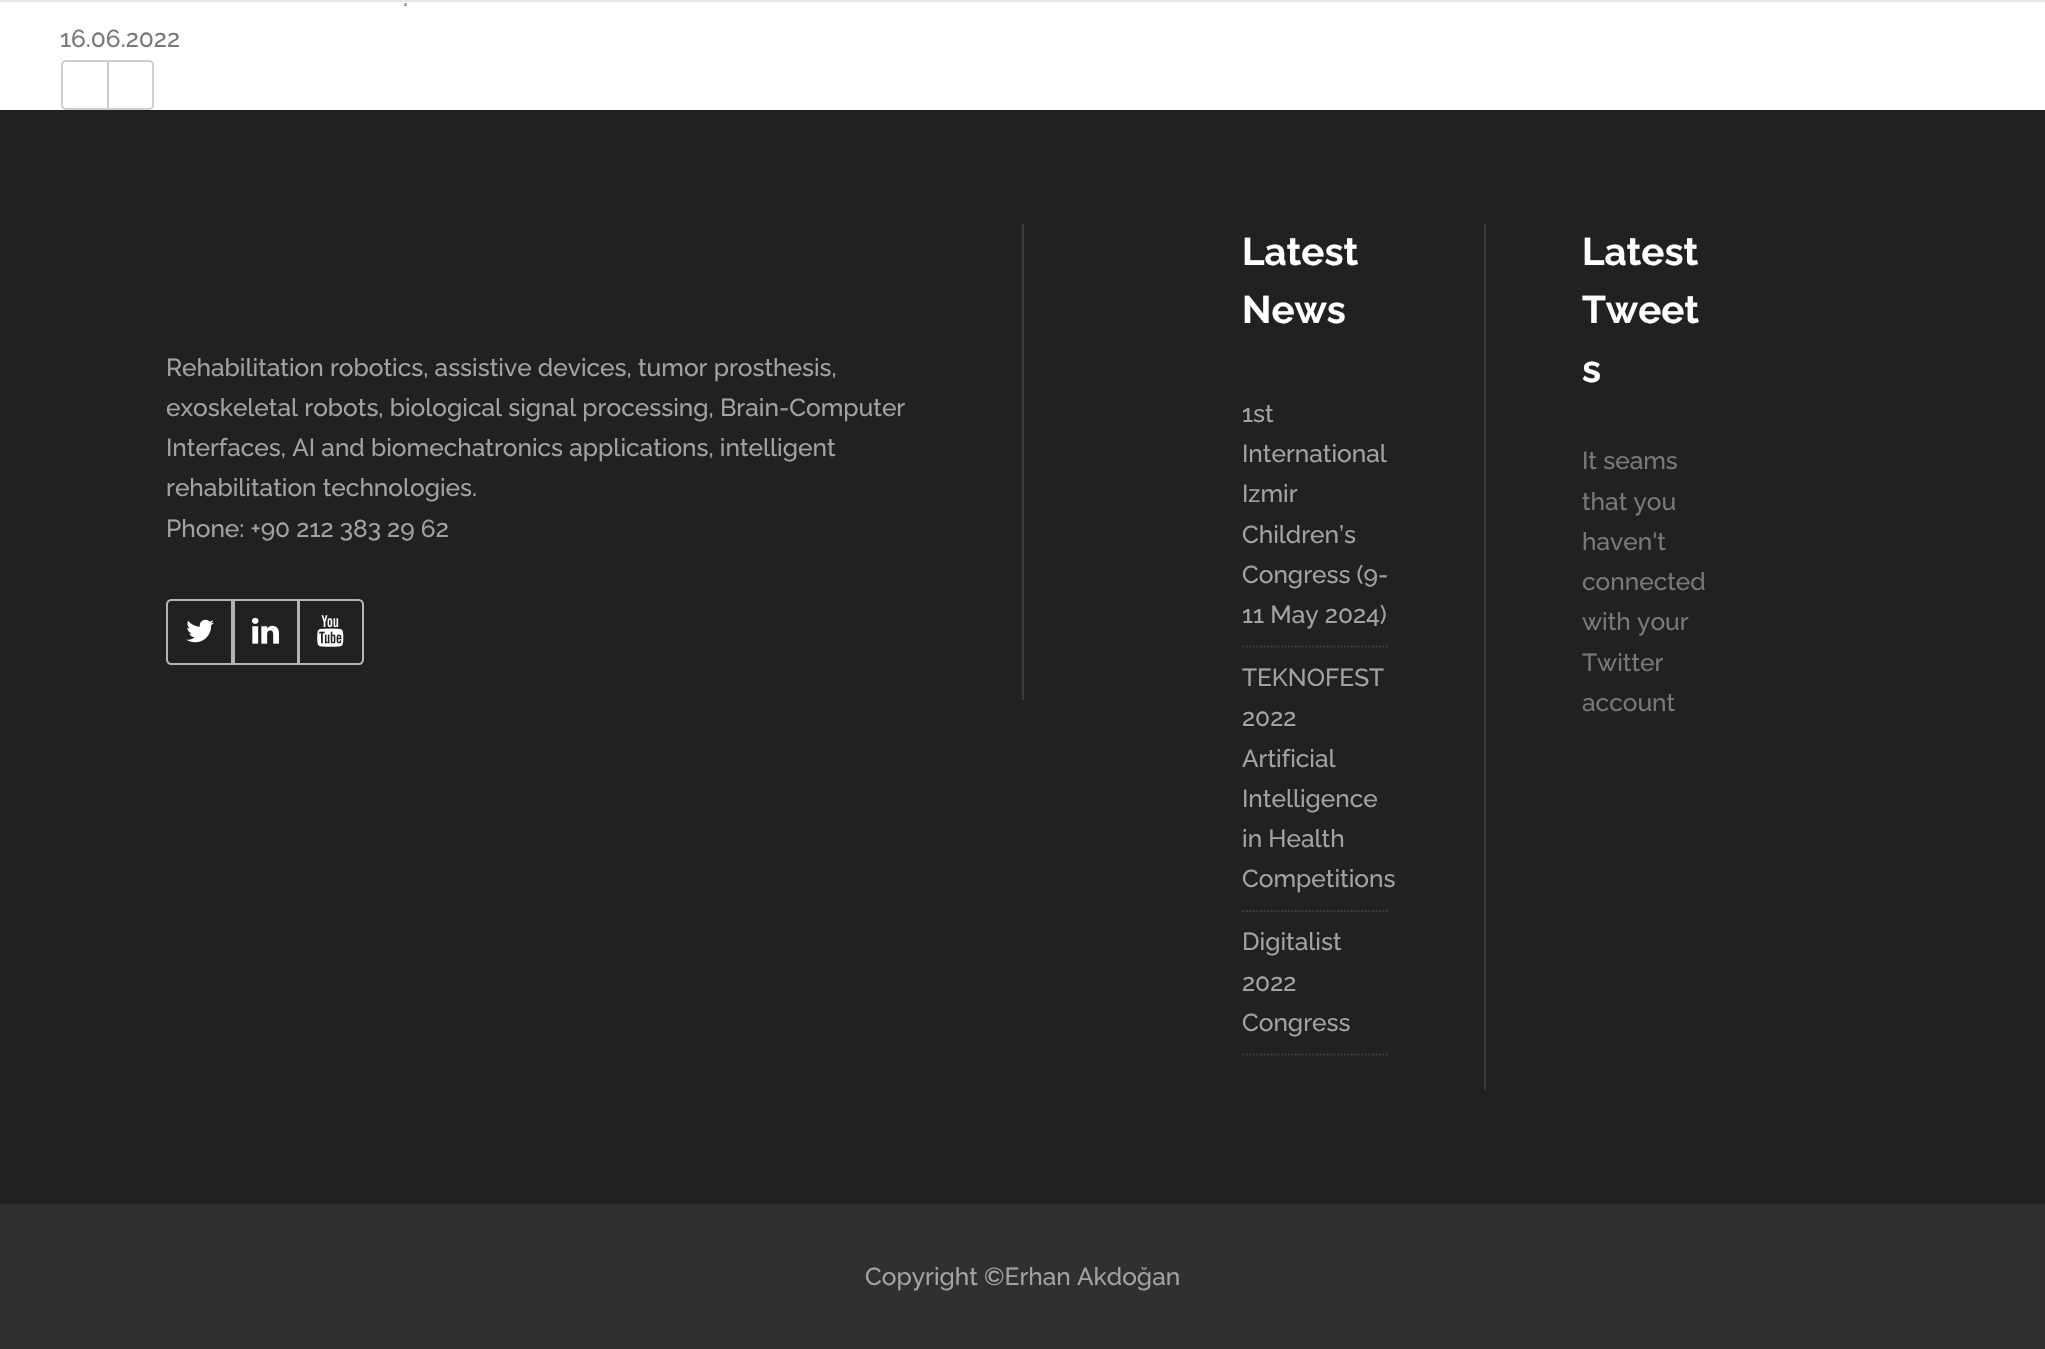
#include "include/core/SkBlurTypes.h"
#include "include/core/SkCanvas.h"
#include "include/core/SkData.h"
#include "include/core/SkFont.h"
#include "include/core/SkFontMgr.h"
#include "include/core/SkImage.h"
#include "include/core/SkMaskFilter.h"
#include "include/core/SkPaint.h"
#include "include/core/SkPathBuilder.h"
#include "include/core/SkTextBlob.h"
#include "include/effects/SkDashPathEffect.h"
#include "include/effects/SkGradientShader.h"
#include "include/utils/SkParsePath.h"

extern sk_sp<SkFontMgr> fontMgr;

void draw(SkCanvas* canvas) {
    SkPaint p;
    p.setAntiAlias(true);
    auto font = [&](const char* family, int weight, float size, bool italic = false) {
        SkFontStyle style(weight, SkFontStyle::kNormal_Width,
            italic ? SkFontStyle::kItalic_Slant : SkFontStyle::kUpright_Slant);
        SkFont result(fontMgr->matchFamilyStyle(family, style), size);
        result.setSubpixel(true);
        return result;
    };
    auto drawPhoto = [&](const char* path, float l, float t, float r, float b) {
        auto image = SkImages::DeferredFromEncodedData(SkData::MakeFromFileName(path));
        canvas->drawImageRect(image, SkRect::MakeLTRB(l, t, r, b), SkSamplingOptions());
    };
    canvas->clear(0xFFFFFFFF);
    p.setColor(0xFFE7E7E7);
    canvas->drawRect(SkRect::MakeLTRB(0, 0, 2045, 2), p);
    auto font1 = font("Raleway", 500, 24.5f);
    p.setColor(0xFF797979);
    canvas->drawString(".", 403, 6, font1, p);
    canvas->drawString("16.06.2022", 60, 47, font1, p);
    p.setStyle(SkPaint::kStroke_Style);
    p.setStrokeWidth(2);
    p.setColor(0xFFCECECE);
    canvas->drawRoundRect(SkRect::MakeLTRB(62, 61, 153, 109), 4, 4, p);
    p.setStyle(SkPaint::kFill_Style);
    {
        const struct { float l, t, r, b; SkColor color; } items[] = {
            {107, 61, 109, 109, 0xFFCECECE},
            {0, 110, 2045, 1204, 0xFF212121},
            {1022, 224, 1024, 700, 0xFF3B3B3B},
        };
        for (auto [l, t, r, b, color] : items) {
            p.setColor(color);
            canvas->drawRect(SkRect::MakeLTRB(l, t, r, b), p);
        }
    }
    p.setColor(0xFFA2A2A2);
    {
        const struct { const char* s; float x, y; } items[] = {
            {"Rehabilitation robotics, assistive devices, tumor prosthesis,", 166, 376},
            {"exoskeletal robots, biological signal processing, Brain-Computer", 166, 416},
            {"Interfaces, AI and biomechatronics applications, intelligent", 166, 456},
            {"rehabilitation technologies.", 166, 496},
            {"Phone: +90 212 383 29 62", 166, 537},
        };
        for (auto [s, x, y] : items) {
            canvas->drawString(s, x, y, font1, p);
        }
    }
    p.setStyle(SkPaint::kStroke_Style);
    p.setColor(0xFFB4B4B4);
    canvas->drawPath(SkPathBuilder().moveTo(171, 600).lineTo(232, 600).lineTo(232, 664).lineTo(171, 664).cubicTo(169, 664, 167, 662, 167, 660).lineTo(167, 604).cubicTo(167, 602, 169, 600, 171, 600).close().detach(), p);
    drawPhoto("media/1.png", 186, 619, 214, 643);
    canvas->drawRect(SkRect::MakeLTRB(234, 600, 298, 664), p);
    drawPhoto("media/2.png", 252, 617, 279, 644);
    canvas->drawPath(SkPathBuilder().moveTo(299, 600).lineTo(359, 600).cubicTo(361, 600, 363, 602, 363, 604).lineTo(363, 660).cubicTo(363, 662, 361, 664, 359, 664).lineTo(299, 664).close().detach(), p);
    drawPhoto("media/3.png", 317, 615, 344, 647);
    p.setStyle(SkPaint::kFill_Style);
    p.setColor(0xFF3B3B3B);
    canvas->drawRect(SkRect::MakeLTRB(1484, 224, 1486, 1090), p);
    auto font2 = font("Raleway", 700, 38.5f);
    p.setColor(0xFFFFFFFF);
    canvas->drawString("Latest", 1242, 265, font2, p);
    canvas->drawString("News", 1242, 323, font2, p);
    p.setStyle(SkPaint::kStroke_Style);
    p.setStrokeWidth(1.8f);
    p.setColor(0xFF404040);
    p.setPathEffect(SkDashPathEffect::Make({{1.75f, 1.75f}}, 0));
    canvas->drawPath(SkPathBuilder().moveTo(1242.5f, 646.5f).lineTo(1388, 646.5f).detach(), p);
    p.setPathEffect(nullptr);
    p.setStyle(SkPaint::kFill_Style);
    p.setColor(0xFFA2A2A2);
    {
        const struct { const char* s; float x, y; } items[] = {
            {"1st", 1242, 422},
            {"International", 1242, 462},
            {"Izmir", 1242, 502},
            {"Children’s", 1242, 543},
            {"Congress (9-", 1242, 583},
            {"11 May 2024)", 1242, 623},
        };
        for (auto [s, x, y] : items) {
            canvas->drawString(s, x, y, font1, p);
        }
    }
    p.setStyle(SkPaint::kStroke_Style);
    p.setColor(0xFF404040);
    p.setPathEffect(SkDashPathEffect::Make({{1.75f, 1.75f}}, 0));
    canvas->drawPath(SkPathBuilder().moveTo(1242.5f, 911).lineTo(1388, 911).detach(), p);
    p.setPathEffect(nullptr);
    p.setStyle(SkPaint::kFill_Style);
    p.setColor(0xFFA2A2A2);
    {
        const struct { const char* s; float x, y; } items[] = {
            {"TEKNOFEST", 1242, 686},
            {"2022", 1242, 726},
            {"Artificial", 1242, 767},
            {"Intelligence", 1242, 807},
            {"in Health", 1242, 847},
            {"Competitions", 1242, 887},
        };
        for (auto [s, x, y] : items) {
            canvas->drawString(s, x, y, font1, p);
        }
    }
    p.setStyle(SkPaint::kStroke_Style);
    p.setColor(0xFF404040);
    p.setPathEffect(SkDashPathEffect::Make({{1.75f, 1.75f}}, 0));
    canvas->drawPath(SkPathBuilder().moveTo(1242.5f, 1054.5f).lineTo(1388, 1054.5f).detach(), p);
    p.setPathEffect(nullptr);
    p.setStyle(SkPaint::kFill_Style);
    p.setColor(0xFFA2A2A2);
    {
        const struct { const char* s; float x, y; } items[] = {
            {"Digitalist", 1242, 950},
            {"2022", 1242, 991},
            {"Congress", 1242, 1031},
        };
        for (auto [s, x, y] : items) {
            canvas->drawString(s, x, y, font1, p);
        }
    }
    p.setColor(0xFFFFFFFF);
    {
        const struct { const char* s; float x, y; } items[] = {
            {"Latest", 1582, 265},
            {"Tweet", 1582, 323},
            {"s", 1582, 382},
        };
        for (auto [s, x, y] : items) {
            canvas->drawString(s, x, y, font2, p);
        }
    }
    p.setColor(0xFF797979);
    {
        const struct { const char* s; float x, y; } items[] = {
            {"It seams", 1582, 469},
            {"that you", 1582, 510},
            {"haven't", 1582, 550},
            {"connected", 1582, 590},
            {"with your", 1582, 630},
            {"Twitter", 1582, 671},
            {"account", 1582, 711},
        };
        for (auto [s, x, y] : items) {
            canvas->drawString(s, x, y, font1, p);
        }
    }
    p.setColor(0xFF303030);
    canvas->drawRect(SkRect::MakeLTRB(0, 1204, 2045, 1349), p);
    p.setColor(0xFFA2A2A2);
    canvas->drawString("Copyright ©Erhan Akdoğan", 865, 1285, font1, p);
}
